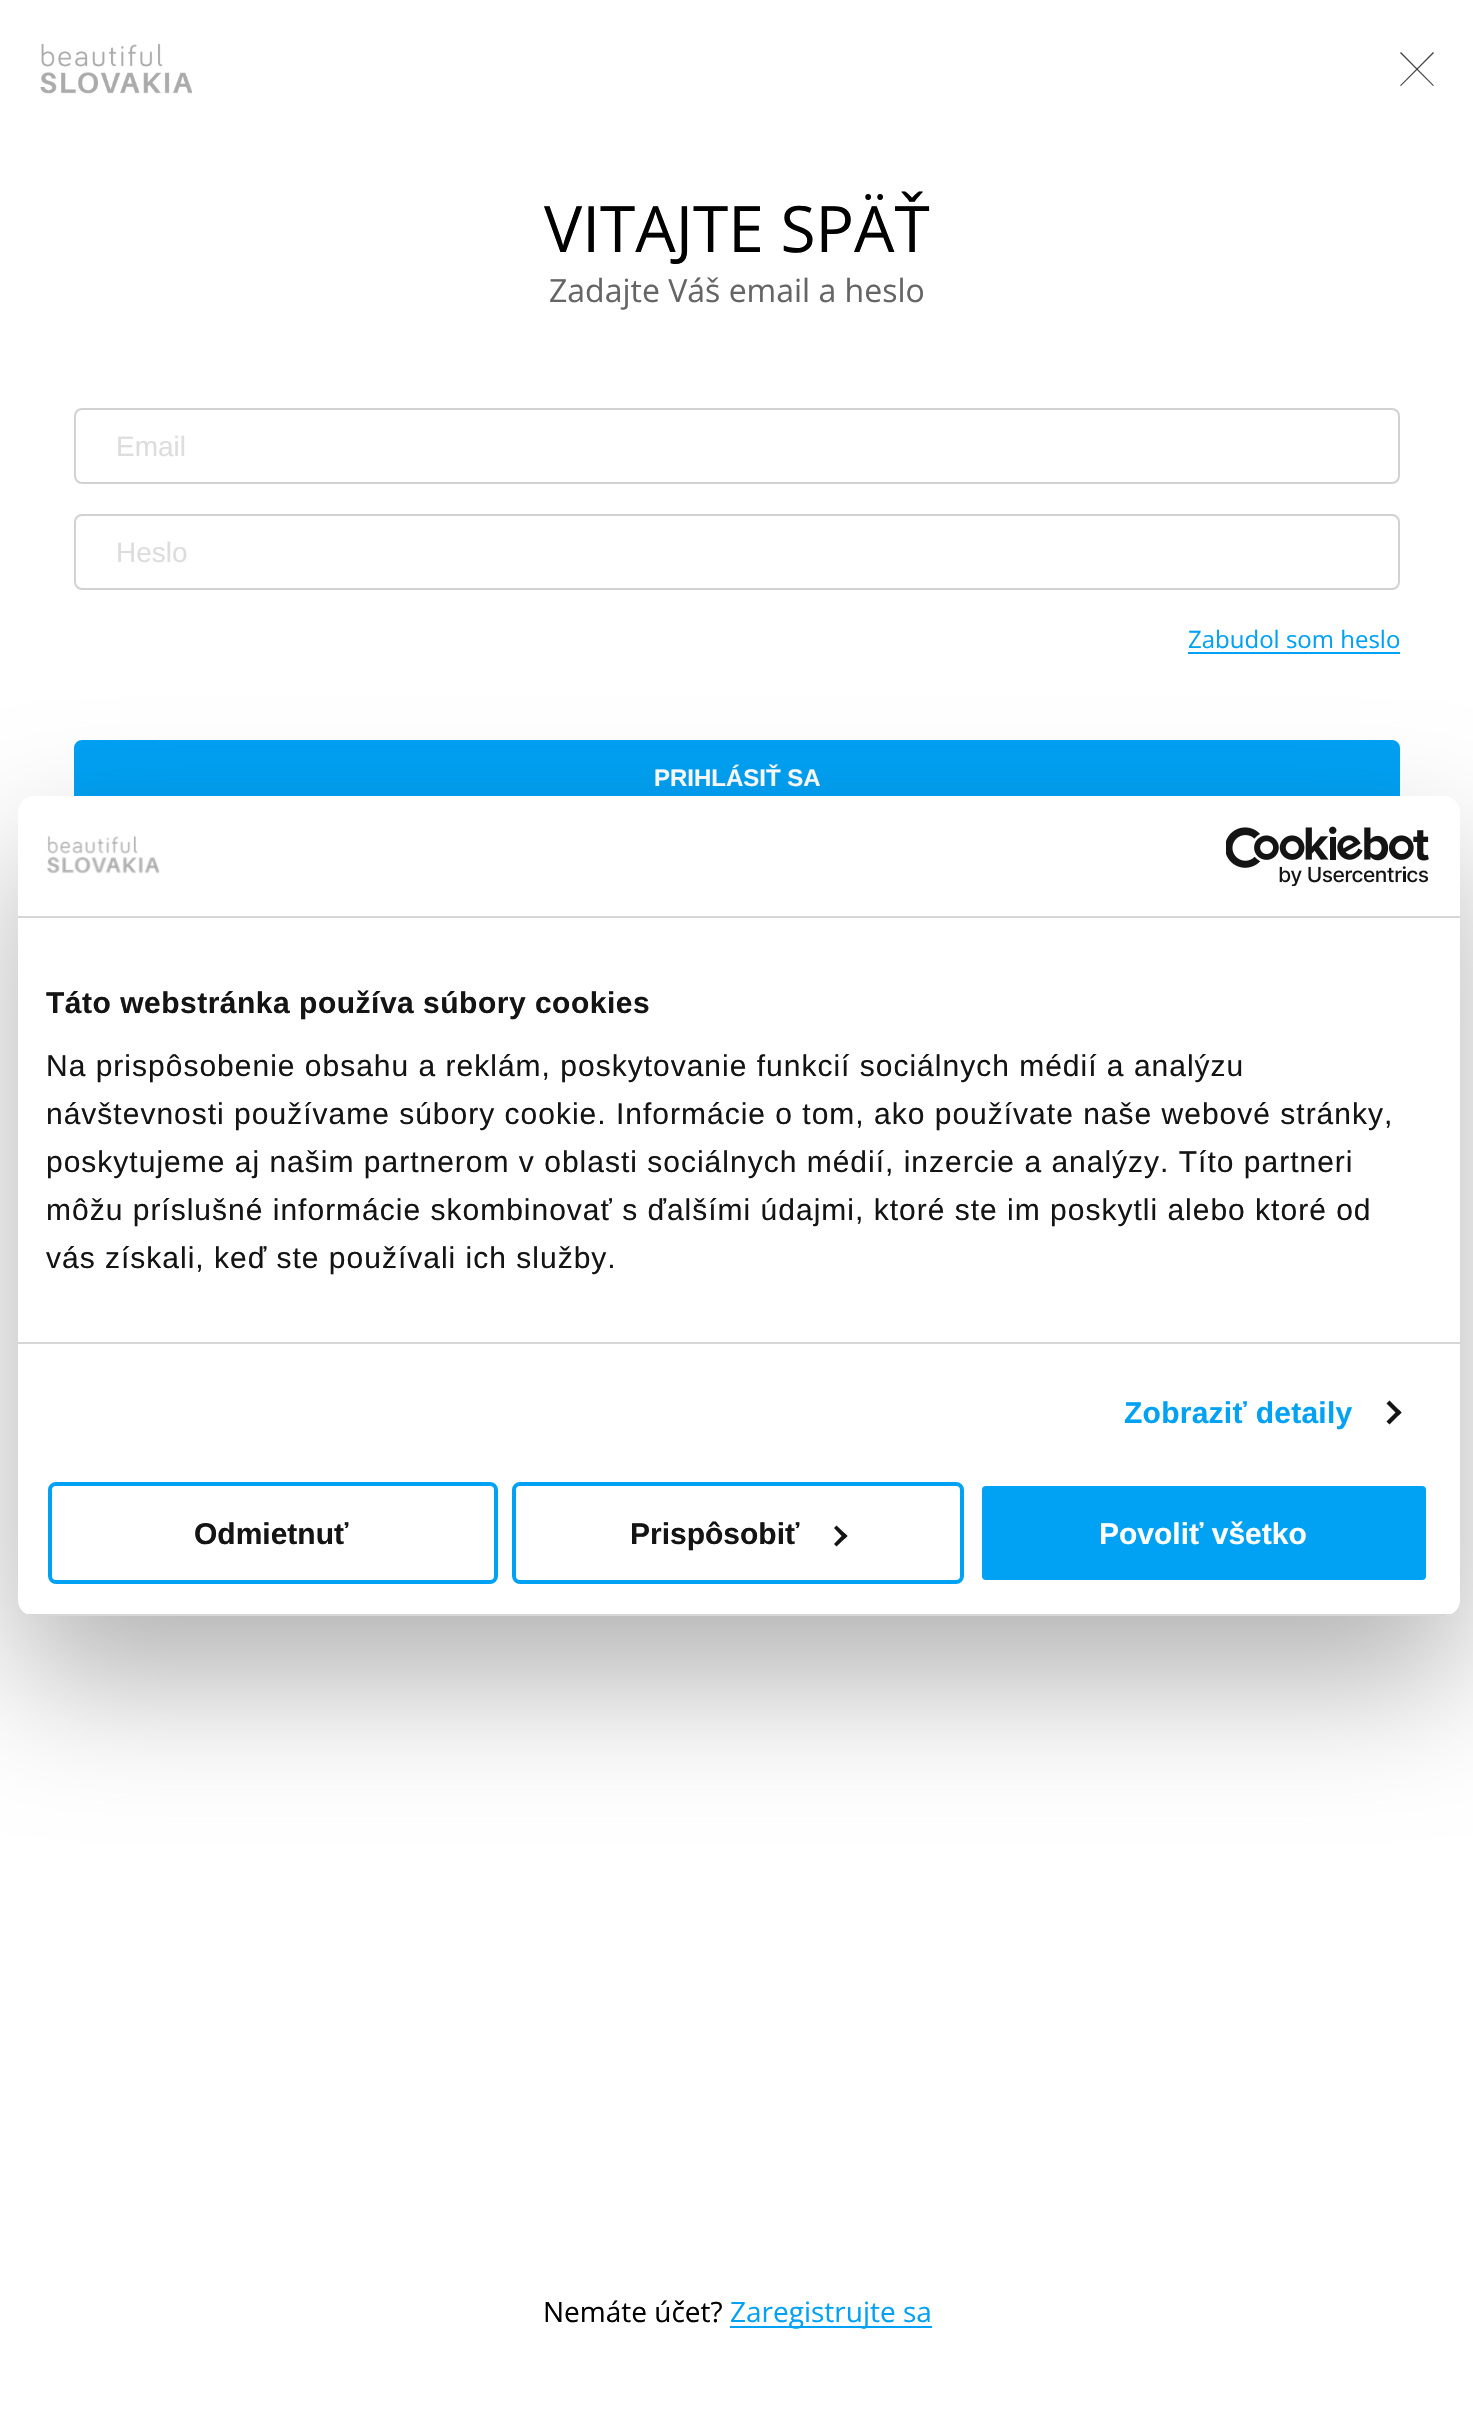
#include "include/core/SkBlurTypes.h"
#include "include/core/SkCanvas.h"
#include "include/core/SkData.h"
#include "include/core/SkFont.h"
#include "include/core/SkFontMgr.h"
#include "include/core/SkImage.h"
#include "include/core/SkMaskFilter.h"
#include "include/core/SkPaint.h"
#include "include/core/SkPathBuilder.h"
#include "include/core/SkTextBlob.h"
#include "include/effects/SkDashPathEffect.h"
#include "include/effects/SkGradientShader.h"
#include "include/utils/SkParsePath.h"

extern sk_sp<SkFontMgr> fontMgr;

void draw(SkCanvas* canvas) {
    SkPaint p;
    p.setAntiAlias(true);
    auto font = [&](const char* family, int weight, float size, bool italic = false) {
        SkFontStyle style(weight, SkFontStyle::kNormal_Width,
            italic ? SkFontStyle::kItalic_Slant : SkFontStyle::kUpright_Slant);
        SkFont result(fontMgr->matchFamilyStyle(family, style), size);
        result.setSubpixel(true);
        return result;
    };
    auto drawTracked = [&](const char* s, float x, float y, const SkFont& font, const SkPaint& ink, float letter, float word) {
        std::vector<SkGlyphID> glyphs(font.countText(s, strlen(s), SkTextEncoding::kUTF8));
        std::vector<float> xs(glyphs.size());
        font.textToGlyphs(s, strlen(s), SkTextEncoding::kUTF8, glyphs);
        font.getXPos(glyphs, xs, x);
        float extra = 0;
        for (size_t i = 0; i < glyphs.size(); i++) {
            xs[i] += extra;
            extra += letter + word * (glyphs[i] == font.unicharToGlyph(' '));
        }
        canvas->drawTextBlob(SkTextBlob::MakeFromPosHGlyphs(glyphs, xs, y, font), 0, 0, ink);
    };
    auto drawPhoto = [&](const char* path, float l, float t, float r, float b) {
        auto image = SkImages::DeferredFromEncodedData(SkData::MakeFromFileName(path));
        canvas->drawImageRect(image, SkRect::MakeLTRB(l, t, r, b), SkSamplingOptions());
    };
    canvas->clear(0xFFFFFFFF);
    drawPhoto("media/1.png", 40, 44, 192, 94);
    p.setColor(0xFF444444);
    canvas->drawPath(SkPathBuilder().moveTo(1401, 52).lineTo(1434, 85.5f).lineTo(1433, 86).lineTo(1400, 53).close().moveTo(1433, 52).lineTo(1434, 53).lineTo(1401, 86).lineTo(1400, 85.5f).close().detach(), p);
    auto font1 = font("Open Sans", 400, 64);
    p.setColor(0xFF000000);
    canvas->drawString("VITAJTE SPÄŤ", 544, 252, font1, p);
    auto font2 = font("Open Sans", 400, 32);
    p.setColor(0xFF656565);
    canvas->drawString("Zadajte Váš email a heslo", 549, 302, font2, p);
    p.setStyle(SkPaint::kStroke_Style);
    p.setStrokeWidth(2);
    p.setColor(0xFFD2D2D2);
    canvas->drawRoundRect(SkRect::MakeLTRB(75, 409, 1399, 483), 7, 7, p);
    auto font3 = font("Liberation Sans", 400, 28);
    p.setStyle(SkPaint::kFill_Style);
    p.setColor(0xFFDDDDDD);
    canvas->drawString("Email", 116, 456, font3, p);
    p.setStyle(SkPaint::kStroke_Style);
    p.setColor(0xFFD2D2D2);
    canvas->drawRoundRect(SkRect::MakeLTRB(75, 515, 1399, 589), 7, 7, p);
    p.setStyle(SkPaint::kFill_Style);
    p.setColor(0xFFDDDDDD);
    canvas->drawString("Heslo", 116, 562, font3, p);
    auto font4 = font("Open Sans", 400, 24);
    p.setColor(0xFF01A1F4);
    canvas->drawString("Zabudol som heslo", 1188, 648, font4, p);
    canvas->drawRect(SkRect::MakeLTRB(1188, 652, 1400, 654), p);
    canvas->drawRoundRect(SkRect::MakeLTRB(75, 741, 1399, 815), 7, 7, p);
    p.setStyle(SkPaint::kStroke_Style);
    canvas->drawRoundRect(SkRect::MakeLTRB(75, 741, 1399, 815), 7, 7, p);
    auto font5 = font("Liberation Sans", 700, 24);
    p.setStyle(SkPaint::kFill_Style);
    p.setColor(0xFFFFFFFF);
    canvas->drawString("PRIHLÁSIŤ SA", 654, 786, font5, p);
    auto font6 = font("Open Sans", 400, 28);
    p.setColor(0xFF000000);
    canvas->drawString("Nemáte účet?", 543, 2322, font6, p);
    p.setColor(0xFF01A1F4);
    canvas->drawString("Zaregistrujte sa", 730, 2322, font6, p);
    canvas->drawRect(SkRect::MakeLTRB(730, 2326, 932, 2328), p);
    p.setColor(0x4D000000);
    p.setMaskFilter(SkMaskFilter::MakeBlur(kNormal_SkBlurStyle, 68));
    canvas->drawRoundRect(SkRect::MakeLTRB(18, 860, 1460, 1680), 16, 16, p);
    p.setMaskFilter(nullptr);
    p.setColor(0xFFFFFFFF);
    canvas->drawRoundRect(SkRect::MakeLTRB(18, 796, 1460, 1616), 16, 16, p);
    p.setColor(0xFFD6D6D6);
    canvas->drawRect(SkRect::MakeLTRB(18, 916, 1460, 918), p);
    drawPhoto("media/2.png", 47, 836, 160, 874);
    drawPhoto("media/3.png", 1226, 826, 1429, 886);
    canvas->drawRect(SkRect::MakeLTRB(18, 1342, 1460, 1344), p);
    auto font7 = font("Liberation Sans", 700, 30);
    p.setColor(0xFF141414);
    drawTracked("Táto webstránka používa súbory cookies", 46, 1013, font7, p, 0.5f, 0);
    auto font8 = font("Liberation Sans", 400, 30);
    {
        const struct { const char* s; float x, y; } items[] = {
            {"Na prispôsobenie obsahu a reklám, poskytovanie funkcií sociálnych médií a analýzu", 46, 1076},
            {"návštevnosti používame súbory cookie. Informácie o tom, ako používate naše webové stránky,", 46, 1124},
            {"poskytujeme aj našim partnerom v oblasti sociálnych médií, inzercie a analýzy. Títo partneri", 46, 1172},
            {"môžu príslušné informácie skombinovať s ďalšími údajmi, ktoré ste im poskytli alebo ktoré od", 46, 1220},
            {"vás získali, keď ste používali ich služby.", 46, 1268},
        };
        for (auto [s, x, y] : items) {
            drawTracked(s, x, y, font8, p, 1, 0);
        }
    }
    p.setColor(0xFF01A1F4);
    drawTracked("Zobraziť detaily", 1124, 1423, font7, p, 0.25f, 0);
    p.setColor(0xFF141414);
    canvas->drawPath(SkPathBuilder().moveTo(1389.5f, 1400.5f).lineTo(1401.5f, 1412.5f).lineTo(1398.5f, 1415.5f).lineTo(1386.5f, 1403.5f).close().detach(), p);
    canvas->drawPath(SkPathBuilder().moveTo(1398.5f, 1409.5f).lineTo(1401.5f, 1412.5f).lineTo(1389.5f, 1424.5f).lineTo(1386.5f, 1421.5f).close().detach(), p);
    canvas->save();
    canvas->clipPath(SkPathBuilder().moveTo(34, 796).lineTo(1444, 796).cubicTo(1453, 796, 1460, 803, 1460, 812).lineTo(1460, 1600).cubicTo(1460, 1609, 1453, 1616, 1444, 1616).lineTo(34, 1616).cubicTo(25, 1616, 18, 1609, 18, 1600).lineTo(18, 812).cubicTo(18, 803, 25, 796, 34, 796).close().detach(), true);
    p.setColor(0xFFD6D6D6);
    canvas->drawRect(SkRect::MakeLTRB(18, 1614, 1460, 1616), p);
    canvas->restore();
    p.setStyle(SkPaint::kStroke_Style);
    p.setStrokeWidth(4);
    p.setColor(0xFF01A1F4);
    canvas->drawRoundRect(SkRect::MakeLTRB(50, 1484, 496, 1582), 6, 6, p);
    p.setStyle(SkPaint::kFill_Style);
    p.setColor(0xFF141414);
    canvas->drawString("Odmietnuť", 194, 1544, font7, p);
    p.setStyle(SkPaint::kStroke_Style);
    p.setColor(0xFF01A1F4);
    canvas->drawRoundRect(SkRect::MakeLTRB(514, 1484, 962, 1582), 6, 6, p);
    p.setStyle(SkPaint::kFill_Style);
    p.setColor(0xFF141414);
    canvas->drawString("Prispôsobiť", 630, 1544, font7, p);
    canvas->drawPath(SkPathBuilder().moveTo(836.5f, 1525.5f).lineTo(847.5f, 1536).lineTo(844.5f, 1539).lineTo(834, 1528).close().detach(), p);
    canvas->drawPath(SkPathBuilder().moveTo(844.5f, 1533).lineTo(847.5f, 1536).lineTo(836.5f, 1546.5f).lineTo(834, 1544).close().detach(), p);
    p.setColor(0xFF01A1F4);
    canvas->drawRoundRect(SkRect::MakeLTRB(980, 1484, 1428, 1582), 6, 6, p);
    p.setStyle(SkPaint::kStroke_Style);
    p.setColor(0xFFFFFFFF);
    canvas->drawRoundRect(SkRect::MakeLTRB(980, 1484, 1428, 1582), 6, 6, p);
    p.setStyle(SkPaint::kFill_Style);
    canvas->drawString("Povoliť všetko", 1099, 1544, font7, p);
}
